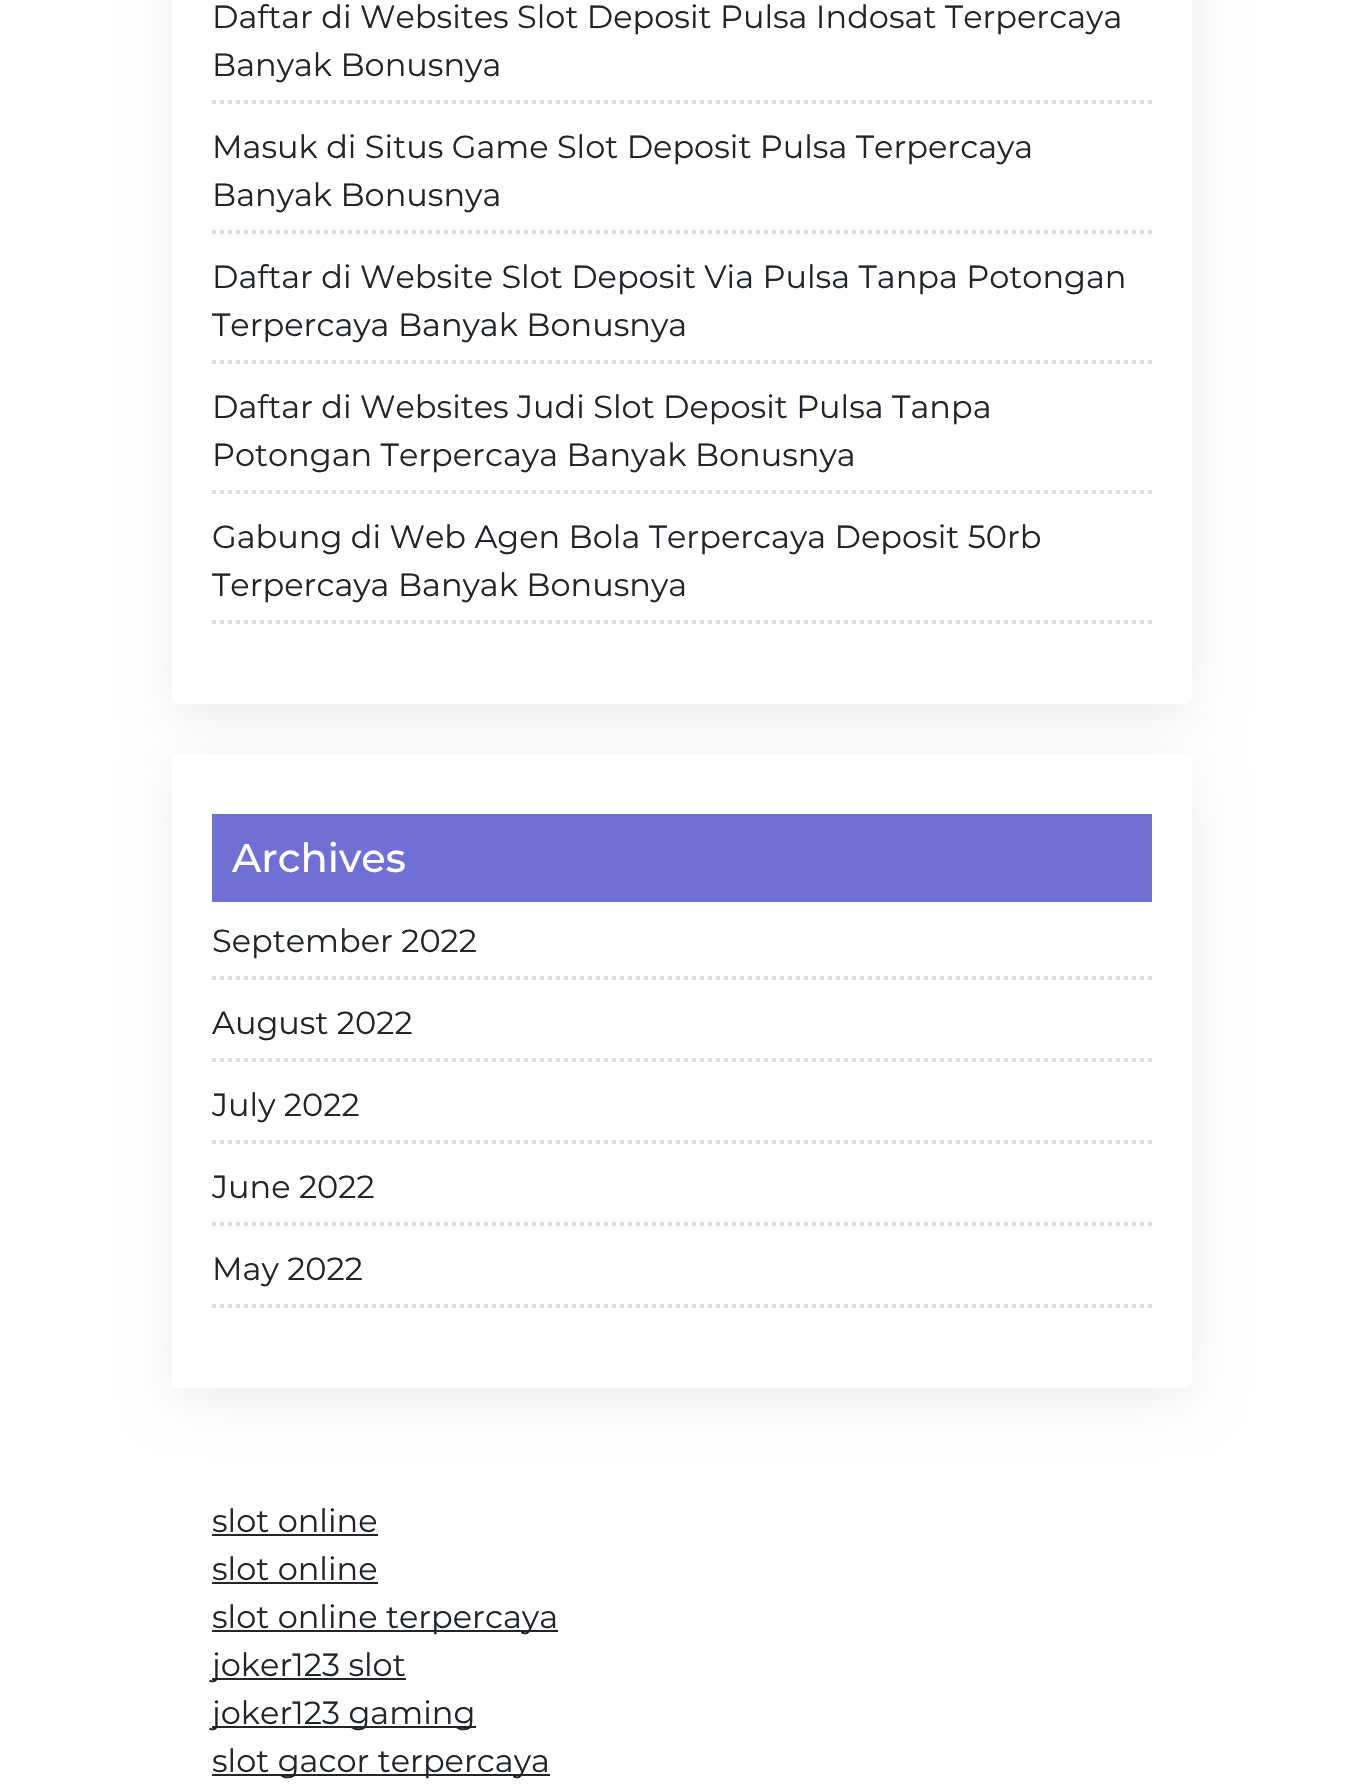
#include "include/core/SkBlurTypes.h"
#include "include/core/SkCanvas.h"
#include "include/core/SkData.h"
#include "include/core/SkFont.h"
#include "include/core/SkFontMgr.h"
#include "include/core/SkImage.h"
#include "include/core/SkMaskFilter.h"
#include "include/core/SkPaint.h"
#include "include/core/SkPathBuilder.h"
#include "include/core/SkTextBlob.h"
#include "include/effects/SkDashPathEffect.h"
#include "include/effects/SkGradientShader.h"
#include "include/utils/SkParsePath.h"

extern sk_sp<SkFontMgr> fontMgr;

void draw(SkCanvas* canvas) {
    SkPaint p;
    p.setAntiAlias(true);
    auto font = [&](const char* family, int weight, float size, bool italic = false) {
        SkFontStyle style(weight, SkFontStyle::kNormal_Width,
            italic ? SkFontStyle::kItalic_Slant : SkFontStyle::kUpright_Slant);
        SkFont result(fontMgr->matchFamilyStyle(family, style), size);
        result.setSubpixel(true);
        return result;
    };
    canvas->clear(0xFFFFFFFF);
    p.setColor(0x12000000);
    p.setMaskFilter(SkMaskFilter::MakeBlur(kNormal_SkBlurStyle, 25));
    canvas->drawRoundRect(SkRect::MakeLTRB(172, -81, 1192, 716), 6, 6, p);
    p.setMaskFilter(nullptr);
    p.setColor(0xFFFFFFFF);
    canvas->drawRoundRect(SkRect::MakeLTRB(172, -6, 1192, 704), 6, 6, p);
    p.setStyle(SkPaint::kStroke_Style);
    p.setStrokeWidth(4);
    p.setColor(0xFFDDDDDD);
    p.setPathEffect(SkDashPathEffect::Make({{4, 4}}, 0));
    canvas->drawPath(SkPathBuilder().moveTo(212, 102).lineTo(1152, 102).detach(), p);
    p.setPathEffect(nullptr);
    auto font1 = font("Montserrat", 400, 32);
    p.setStyle(SkPaint::kFill_Style);
    p.setColor(0xFF212529);
    canvas->drawString("Daftar di Websites Slot Deposit Pulsa Indosat Terpercaya", 212, 28, font1, p);
    canvas->drawString("Banyak Bonusnya", 212, 76, font1, p);
    p.setStyle(SkPaint::kStroke_Style);
    p.setColor(0xFFDDDDDD);
    p.setPathEffect(SkDashPathEffect::Make({{4, 4}}, 0));
    canvas->drawPath(SkPathBuilder().moveTo(212, 232).lineTo(1152, 232).detach(), p);
    p.setPathEffect(nullptr);
    p.setStyle(SkPaint::kFill_Style);
    p.setColor(0xFF212529);
    canvas->drawString("Masuk di Situs Game Slot Deposit Pulsa Terpercaya", 212, 158, font1, p);
    canvas->drawString("Banyak Bonusnya", 212, 206, font1, p);
    p.setStyle(SkPaint::kStroke_Style);
    p.setColor(0xFFDDDDDD);
    p.setPathEffect(SkDashPathEffect::Make({{4, 4}}, 0));
    canvas->drawPath(SkPathBuilder().moveTo(212, 362).lineTo(1152, 362).detach(), p);
    p.setPathEffect(nullptr);
    p.setStyle(SkPaint::kFill_Style);
    p.setColor(0xFF212529);
    canvas->drawString("Daftar di Website Slot Deposit Via Pulsa Tanpa Potongan", 212, 288, font1, p);
    canvas->drawString("Terpercaya Banyak Bonusnya", 212, 336, font1, p);
    p.setStyle(SkPaint::kStroke_Style);
    p.setColor(0xFFDDDDDD);
    p.setPathEffect(SkDashPathEffect::Make({{4, 4}}, 0));
    canvas->drawPath(SkPathBuilder().moveTo(212, 492).lineTo(1152, 492).detach(), p);
    p.setPathEffect(nullptr);
    p.setStyle(SkPaint::kFill_Style);
    p.setColor(0xFF212529);
    canvas->drawString("Daftar di Websites Judi Slot Deposit Pulsa Tanpa", 212, 418, font1, p);
    canvas->drawString("Potongan Terpercaya Banyak Bonusnya", 212, 466, font1, p);
    p.setStyle(SkPaint::kStroke_Style);
    p.setColor(0xFFDDDDDD);
    p.setPathEffect(SkDashPathEffect::Make({{4, 4}}, 0));
    canvas->drawPath(SkPathBuilder().moveTo(212, 622).lineTo(1152, 622).detach(), p);
    p.setPathEffect(nullptr);
    p.setStyle(SkPaint::kFill_Style);
    p.setColor(0xFF212529);
    canvas->drawString("Gabung di Web Agen Bola Terpercaya Deposit 50rb", 212, 548, font1, p);
    canvas->drawString("Terpercaya Banyak Bonusnya", 212, 596, font1, p);
    p.setColor(0x12000000);
    p.setMaskFilter(SkMaskFilter::MakeBlur(kNormal_SkBlurStyle, 25));
    canvas->drawRoundRect(SkRect::MakeLTRB(172, 766, 1192, 1400), 6, 6, p);
    p.setMaskFilter(nullptr);
    p.setColor(0xFFFFFFFF);
    canvas->drawRoundRect(SkRect::MakeLTRB(172, 754, 1192, 1388), 6, 6, p);
    p.setColor(0xFF706FD3);
    canvas->drawRect(SkRect::MakeLTRB(212, 814, 1152, 902), p);
    auto font2 = font("Montserrat", 500, 40);
    p.setColor(0xFFFFFFFF);
    canvas->drawString("Archives", 232, 872, font2, p);
    p.setStyle(SkPaint::kStroke_Style);
    p.setColor(0xFFDDDDDD);
    p.setPathEffect(SkDashPathEffect::Make({{4, 4}}, 0));
    canvas->drawPath(SkPathBuilder().moveTo(212, 978).lineTo(1152, 978).detach(), p);
    p.setPathEffect(nullptr);
    p.setStyle(SkPaint::kFill_Style);
    p.setColor(0xFF212529);
    canvas->drawString("September 2022", 212, 952, font1, p);
    p.setStyle(SkPaint::kStroke_Style);
    p.setColor(0xFFDDDDDD);
    p.setPathEffect(SkDashPathEffect::Make({{4, 4}}, 0));
    canvas->drawPath(SkPathBuilder().moveTo(212, 1060).lineTo(1152, 1060).detach(), p);
    p.setPathEffect(nullptr);
    p.setStyle(SkPaint::kFill_Style);
    p.setColor(0xFF212529);
    canvas->drawString("August 2022", 212, 1034, font1, p);
    p.setStyle(SkPaint::kStroke_Style);
    p.setColor(0xFFDDDDDD);
    p.setPathEffect(SkDashPathEffect::Make({{4, 4}}, 0));
    canvas->drawPath(SkPathBuilder().moveTo(212, 1142).lineTo(1152, 1142).detach(), p);
    p.setPathEffect(nullptr);
    p.setStyle(SkPaint::kFill_Style);
    p.setColor(0xFF212529);
    canvas->drawString("July 2022", 212, 1116, font1, p);
    p.setStyle(SkPaint::kStroke_Style);
    p.setColor(0xFFDDDDDD);
    p.setPathEffect(SkDashPathEffect::Make({{4, 4}}, 0));
    canvas->drawPath(SkPathBuilder().moveTo(212, 1224).lineTo(1152, 1224).detach(), p);
    p.setPathEffect(nullptr);
    p.setStyle(SkPaint::kFill_Style);
    p.setColor(0xFF212529);
    canvas->drawString("June 2022", 212, 1198, font1, p);
    p.setStyle(SkPaint::kStroke_Style);
    p.setColor(0xFFDDDDDD);
    p.setPathEffect(SkDashPathEffect::Make({{4, 4}}, 0));
    canvas->drawPath(SkPathBuilder().moveTo(212, 1306).lineTo(1152, 1306).detach(), p);
    p.setPathEffect(nullptr);
    p.setStyle(SkPaint::kFill_Style);
    p.setColor(0xFF212529);
    canvas->drawString("May 2022", 212, 1280, font1, p);
    canvas->drawString("slot online", 212, 1532, font1, p);
    canvas->drawRect(SkRect::MakeLTRB(212, 1534, 378, 1536), p);
    canvas->drawString("slot online", 212, 1580, font1, p);
    canvas->drawRect(SkRect::MakeLTRB(212, 1582, 378, 1584), p);
    canvas->drawRect(SkRect::MakeLTRB(212, 1630, 558, 1632), p);
    canvas->drawString("slot online terpercaya", 212, 1628, font1, p);
    canvas->drawRect(SkRect::MakeLTRB(212, 1678, 406, 1680), p);
    canvas->drawString("joker123 slot", 212, 1676, font1, p);
    canvas->drawRect(SkRect::MakeLTRB(212, 1726, 476, 1728), p);
    canvas->drawString("joker123 gaming", 212, 1724, font1, p);
    canvas->drawRect(SkRect::MakeLTRB(212, 1774, 550, 1776), p);
    canvas->drawString("slot gacor terpercaya", 212, 1772, font1, p);
}
